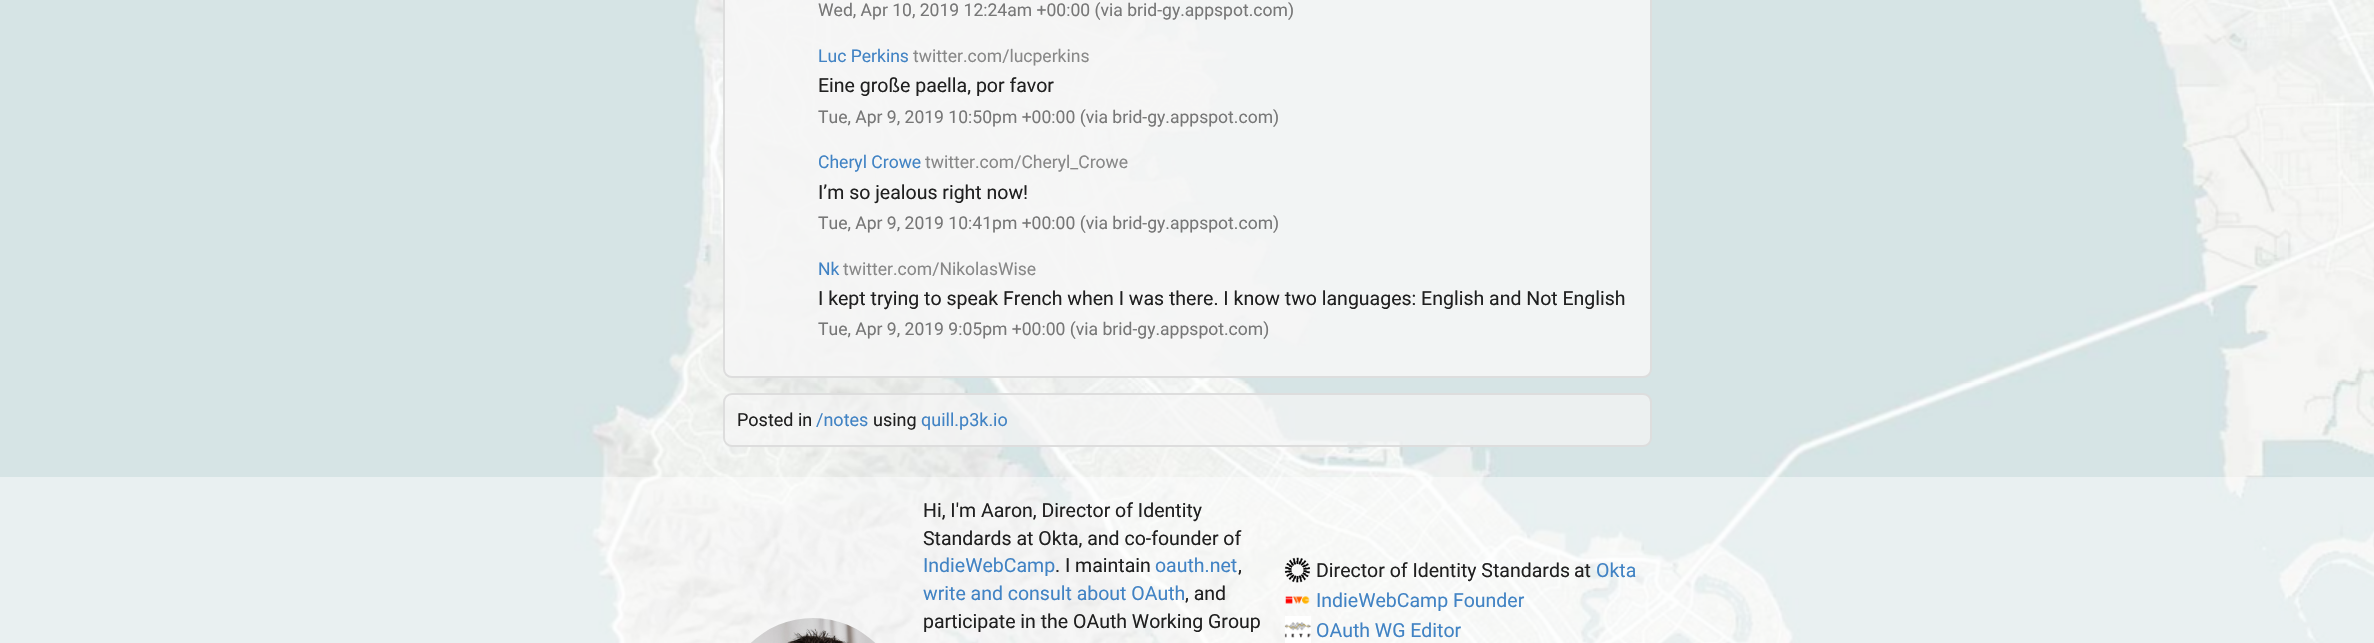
#include "include/core/SkBlurTypes.h"
#include "include/core/SkCanvas.h"
#include "include/core/SkData.h"
#include "include/core/SkFont.h"
#include "include/core/SkFontMgr.h"
#include "include/core/SkImage.h"
#include "include/core/SkMaskFilter.h"
#include "include/core/SkPaint.h"
#include "include/core/SkPathBuilder.h"
#include "include/core/SkTextBlob.h"
#include "include/effects/SkDashPathEffect.h"
#include "include/effects/SkGradientShader.h"
#include "include/utils/SkParsePath.h"

extern sk_sp<SkFontMgr> fontMgr;

void draw(SkCanvas* canvas) {
    SkPaint p;
    p.setAntiAlias(true);
    auto font = [&](const char* family, int weight, float size, bool italic = false) {
        SkFontStyle style(weight, SkFontStyle::kNormal_Width,
            italic ? SkFontStyle::kItalic_Slant : SkFontStyle::kUpright_Slant);
        SkFont result(fontMgr->matchFamilyStyle(family, style), size);
        result.setSubpixel(true);
        return result;
    };
    auto drawPhoto = [&](const char* path, float l, float t, float r, float b) {
        auto image = SkImages::DeferredFromEncodedData(SkData::MakeFromFileName(path));
        canvas->drawImageRect(image, SkRect::MakeLTRB(l, t, r, b), SkSamplingOptions());
    };
    canvas->clear(0xFFFFFFFF);
    drawPhoto("media/1.png", 0, 0, 2374, 643);
    p.setColor(0xE6F5F5F5);
    canvas->drawPath(SkPathBuilder().moveTo(724, -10).lineTo(1651, -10).lineTo(1651, 369).cubicTo(1651, 373.5f, 1647.5f, 377, 1643, 377).lineTo(732, 377).cubicTo(727.5f, 377, 724, 373.5f, 724, 369).close().detach(), p);
    p.setStyle(SkPaint::kStroke_Style);
    p.setStrokeWidth(2);
    p.setColor(0xFFDDDDDD);
    canvas->drawPath(SkPathBuilder().moveTo(724, -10).lineTo(1651, -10).lineTo(1651, 369).cubicTo(1651, 373.5f, 1647.5f, 377, 1643, 377).lineTo(732, 377).cubicTo(727.5f, 377, 724, 373.5f, 724, 369).close().detach(), p);
    auto font1 = font("Roboto", 400, 17.55f);
    p.setStyle(SkPaint::kFill_Style);
    p.setColor(0xFF777777);
    canvas->drawString("Wed, Apr 10, 2019 12:24am +00:00 (via brid-gy.appspot.com)", 818, 16, font1, p);
    p.setColor(0xFF4183C4);
    canvas->drawString("Luc Perkins", 818, 62, font1, p);
    p.setColor(0xFF888888);
    canvas->drawString("twitter.com/lucperkins", 913, 62, font1, p);
    auto font2 = font("Roboto", 400, 19.5f);
    p.setColor(0xFF202020);
    canvas->drawString("Eine große paella, por favor", 818, 92, font2, p);
    p.setColor(0xFF777777);
    canvas->drawString("Tue, Apr 9, 2019 10:50pm +00:00 (via brid-gy.appspot.com)", 818, 123, font1, p);
    p.setColor(0xFF4183C4);
    canvas->drawString("Cheryl Crowe", 818, 168, font1, p);
    p.setColor(0xFF888888);
    canvas->drawString("twitter.com/Cheryl_Crowe", 925, 168, font1, p);
    p.setColor(0xFF202020);
    canvas->drawString("I’m so jealous right now!", 818, 199, font2, p);
    p.setColor(0xFF777777);
    canvas->drawString("Tue, Apr 9, 2019 10:41pm +00:00 (via brid-gy.appspot.com)", 818, 229, font1, p);
    p.setColor(0xFF4183C4);
    canvas->drawString("Nk", 818, 275, font1, p);
    p.setColor(0xFF888888);
    canvas->drawString("twitter.com/NikolasWise", 843, 275, font1, p);
    p.setColor(0xFF202020);
    canvas->drawString("I kept trying to speak French when I was there. I know two languages: English and Not English", 818, 305, font2, p);
    p.setColor(0xFF777777);
    canvas->drawString("Tue, Apr 9, 2019 9:05pm +00:00 (via brid-gy.appspot.com)", 818, 335, font1, p);
    p.setColor(0xB3F5F5F5);
    canvas->drawRoundRect(SkRect::MakeLTRB(724, 394, 1651, 446), 8, 8, p);
    p.setStyle(SkPaint::kStroke_Style);
    p.setColor(0xFFDDDDDD);
    canvas->drawRoundRect(SkRect::MakeLTRB(724, 394, 1651, 446), 8, 8, p);
    auto font3 = font("Roboto", 400, 18);
    p.setStyle(SkPaint::kFill_Style);
    p.setColor(0xFF202020);
    canvas->drawString("Posted in", 737, 426, font3, p);
    p.setColor(0xFF4183C4);
    canvas->drawString("/notes", 816, 426, font3, p);
    p.setColor(0xFF202020);
    canvas->drawString("using", 873, 426, font3, p);
    p.setColor(0xFF4183C4);
    canvas->drawString("quill.p3k.io", 921, 426, font3, p);
    p.setColor(0x73FFFFFF);
    canvas->drawRect(SkRect::MakeLTRB(0, 477, 2374, 643), p);
    drawPhoto("media/2.png", 751, 618, 875, 643);
    p.setColor(0xFF202020);
    canvas->drawString("Hi, I'm Aaron, Director of Identity", 923, 517, font2, p);
    canvas->drawString("Standards at Okta, and co-founder of", 923, 545, font2, p);
    p.setColor(0xFF4183C4);
    canvas->drawString("IndieWebCamp", 923, 572, font2, p);
    p.setColor(0xFF202020);
    canvas->drawString(". I maintain", 1055, 572, font2, p);
    p.setColor(0xFF4183C4);
    canvas->drawString("oauth.net", 1155, 572, font2, p);
    p.setColor(0xFF202020);
    canvas->drawString(",", 1238, 572, font2, p);
    p.setColor(0xFF4183C4);
    canvas->drawString("write and consult about OAuth", 923, 600, font2, p);
    p.setColor(0xFF202020);
    canvas->drawString(", and", 1185, 600, font2, p);
    canvas->drawString("participate in the OAuth Working Group", 923, 628, font2, p);
    drawPhoto("media/3.png", 1284, 557, 1310, 583);
    canvas->drawString("Director of Identity Standards", 1316, 577, font2, p);
    canvas->drawString("at", 1574, 577, font2, p);
    p.setColor(0xFF4183C4);
    canvas->drawString("Okta", 1596, 577, font2, p);
    drawPhoto("media/4.png", 1285, 596, 1310, 604);
    canvas->drawString("IndieWebCamp Founder", 1316, 607, font2, p);
    drawPhoto("media/5.png", 1284, 616, 1311, 643);
    canvas->drawString("OAuth WG Editor", 1316, 637, font2, p);
}
